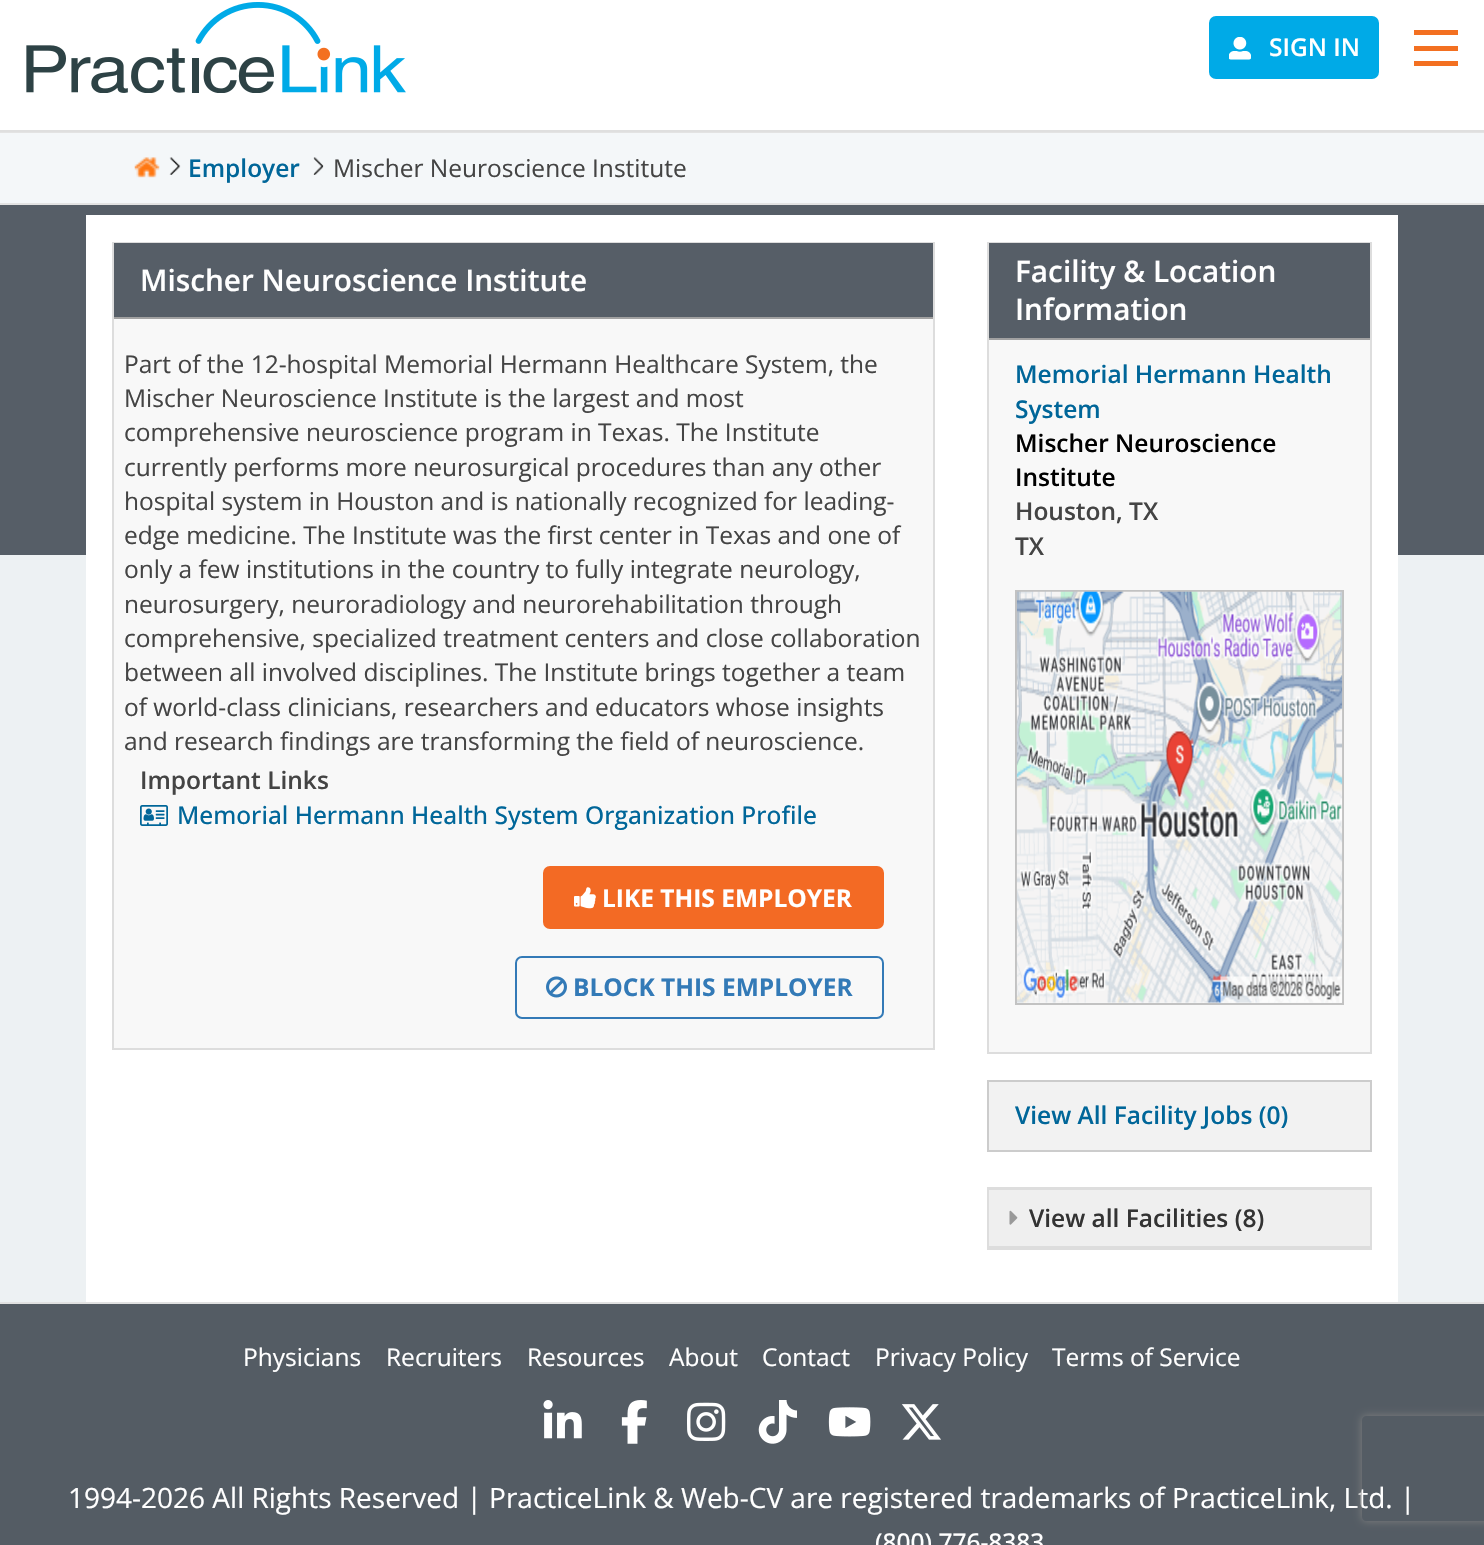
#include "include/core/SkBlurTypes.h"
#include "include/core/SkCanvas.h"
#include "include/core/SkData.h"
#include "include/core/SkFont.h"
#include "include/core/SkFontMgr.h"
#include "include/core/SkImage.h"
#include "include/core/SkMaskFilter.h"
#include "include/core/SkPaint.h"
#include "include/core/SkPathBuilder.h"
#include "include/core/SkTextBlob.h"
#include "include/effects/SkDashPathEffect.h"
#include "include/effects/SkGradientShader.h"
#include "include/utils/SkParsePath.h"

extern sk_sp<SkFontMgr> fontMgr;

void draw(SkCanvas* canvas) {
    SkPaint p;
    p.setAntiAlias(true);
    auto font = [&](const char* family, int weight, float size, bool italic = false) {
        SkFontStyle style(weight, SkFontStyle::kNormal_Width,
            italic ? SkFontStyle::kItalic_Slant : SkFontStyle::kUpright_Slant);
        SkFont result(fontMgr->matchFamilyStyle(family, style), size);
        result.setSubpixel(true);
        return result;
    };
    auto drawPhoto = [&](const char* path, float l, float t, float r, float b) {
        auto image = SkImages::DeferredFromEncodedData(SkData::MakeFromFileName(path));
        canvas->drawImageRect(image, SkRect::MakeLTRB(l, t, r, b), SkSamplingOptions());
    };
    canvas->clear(0xFFF4F7F9);
    p.setColor(0xFFFFFFFF);
    canvas->drawRect(SkRect::MakeLTRB(0, 0, 1484, 130), p);
    p.setColor(0xFFDFDFDF);
    canvas->drawRect(SkRect::MakeLTRB(0, 130, 1484, 132), p);
    drawPhoto("media/1.png", 26, 2, 406, 93);
    p.setColor(0xFF00AAE7);
    canvas->drawRoundRect(SkRect::MakeLTRB(1210, 17, 1378, 78), 6, 6, p);
    p.setStyle(SkPaint::kStroke_Style);
    p.setStrokeWidth(2);
    canvas->drawRoundRect(SkRect::MakeLTRB(1210, 17, 1378, 78), 6, 6, p);
    drawPhoto("media/2.png", 1229, 37, 1251, 60);
    auto font1 = font("Open Sans", 600, 24.5f);
    p.setStyle(SkPaint::kFill_Style);
    p.setColor(0xFFFFFFFF);
    canvas->drawString("SIGN IN", 1269, 56, font1, p);
    {
        const struct { float l, t, r, b; SkColor color; } items[] = {
            {1414, 30, 1458, 35, 0xFFF37021},
            {1414, 46, 1458, 51, 0xFFF37021},
            {1414, 61, 1458, 66, 0xFFF37021},
            {0, 132, 1484, 133, 0xFFE3E3E3},
            {0, 203, 1484, 205, 0xFFE3E3E3},
        };
        for (auto [l, t, r, b, color] : items) {
            p.setColor(color);
            canvas->drawRect(SkRect::MakeLTRB(l, t, r, b), p);
        }
    }
    drawPhoto("media/3.png", 134, 157, 160, 178);
    drawPhoto("media/4.png", 169, 157, 181, 175);
    p.setColor(0xFF006699);
    canvas->drawString("Employer", 188, 177, font1, p);
    drawPhoto("media/5.png", 313, 157, 324, 175);
    auto font2 = font("Open Sans", 400, 24.5f);
    p.setColor(0xFF444444);
    canvas->drawString("Mischer Neuroscience Institute", 333, 177, font2, p);
    {
        const struct { float l, t, r, b; SkColor color; } items[] = {
            {0, 555, 1484, 1302, 0xFFEDF1F3},
            {0, 205, 1484, 555, 0xFF565E67},
            {86, 215, 1398, 1302, 0xFFFFFFFF},
        };
        for (auto [l, t, r, b, color] : items) {
            p.setColor(color);
            canvas->drawRect(SkRect::MakeLTRB(l, t, r, b), p);
        }
    }
    p.setStyle(SkPaint::kStroke_Style);
    p.setColor(0xFFDDDDDD);
    canvas->drawRect(SkRect::MakeLTRB(113, 243, 934, 1049), p);
    p.setStyle(SkPaint::kFill_Style);
    p.setColor(0xFF565E67);
    canvas->drawRect(SkRect::MakeLTRB(114, 243, 933, 317), p);
    p.setColor(0xFFA1A1A1);
    canvas->drawRect(SkRect::MakeLTRB(114, 317, 933, 319), p);
    auto font3 = font("Open Sans", 600, 29.75f);
    p.setColor(0xFFFFFFFF);
    canvas->drawString("Mischer Neuroscience Institute", 140, 291, font3, p);
    p.setColor(0xFFF8F8F8);
    canvas->drawRect(SkRect::MakeLTRB(114, 319, 933, 1048), p);
    p.setColor(0xFF444444);
    {
        const struct { const char* s; float x, y; } items[] = {
            {"Part of the 12-hospital Memorial Hermann Healthcare System, the", 124, 373},
            {"Mischer Neuroscience Institute is the largest and most", 124, 407},
            {"comprehensive neuroscience program in Texas. The Institute", 124, 441},
            {"currently performs more neurosurgical procedures than any other", 124, 476},
            {"hospital system in Houston and is nationally recognized for leading-", 124, 510},
            {"edge medicine. The Institute was the first center in Texas and one of", 124, 544},
            {"only a few institutions in the country to fully integrate neurology,", 124, 578},
            {"neurosurgery, neuroradiology and neurorehabilitation through", 124, 613},
            {"comprehensive, specialized treatment centers and close collaboration", 124, 647},
            {"between all involved disciplines. The Institute brings together a team", 124, 681},
            {"of world-class clinicians, researchers and educators whose insights", 124, 716},
            {"and research findings are transforming the field of neuroscience.", 124, 750},
        };
        for (auto [s, x, y] : items) {
            canvas->drawString(s, x, y, font2, p);
        }
    }
    canvas->drawString("Important Links", 140, 789, font1, p);
    drawPhoto("media/6.png", 140, 805, 168, 826);
    auto font4 = font("Open Sans", 500, 24.5f);
    p.setColor(0xFF006699);
    canvas->drawString("Memorial Hermann Health System Organization Profile", 177, 824, font4, p);
    p.setColor(0xFFF36A24);
    canvas->drawRoundRect(SkRect::MakeLTRB(544, 867, 883, 928), 6, 6, p);
    p.setStyle(SkPaint::kStroke_Style);
    canvas->drawRoundRect(SkRect::MakeLTRB(544, 867, 883, 928), 6, 6, p);
    drawPhoto("media/7.png", 574, 887, 596, 909);
    auto font5 = font("Open Sans", 700, 24.5f);
    p.setStyle(SkPaint::kFill_Style);
    p.setColor(0xFFFFFFFF);
    canvas->drawString("LIKE THIS EMPLOYER", 602, 907, font5, p);
    p.setStyle(SkPaint::kStroke_Style);
    p.setColor(0xFF337AB7);
    canvas->drawRoundRect(SkRect::MakeLTRB(516, 957, 883, 1018), 6, 6, p);
    drawPhoto("media/8.png", 546, 976, 567, 998);
    p.setStyle(SkPaint::kFill_Style);
    canvas->drawString("BLOCK THIS EMPLOYER", 573, 996, font5, p);
    p.setStyle(SkPaint::kStroke_Style);
    p.setColor(0xFFDDDDDD);
    canvas->drawRect(SkRect::MakeLTRB(988, 243, 1371, 1053), p);
    p.setStyle(SkPaint::kFill_Style);
    p.setColor(0xFF565E67);
    canvas->drawRect(SkRect::MakeLTRB(989, 243, 1370, 338), p);
    p.setColor(0xFFA1A1A1);
    canvas->drawRect(SkRect::MakeLTRB(989, 338, 1370, 340), p);
    p.setColor(0xFFFFFFFF);
    canvas->drawString("Facility & Location", 1015, 282, font3, p);
    canvas->drawString("Information", 1015, 320, font3, p);
    p.setColor(0xFFF8F8F8);
    canvas->drawRect(SkRect::MakeLTRB(989, 340, 1370, 1052), p);
    p.setColor(0xFF006699);
    canvas->drawString("Memorial Hermann Health", 1015, 383, font1, p);
    canvas->drawString("System", 1015, 418, font1, p);
    p.setColor(0xFF000000);
    canvas->drawString("Mischer Neuroscience", 1015, 452, font1, p);
    canvas->drawString("Institute", 1015, 486, font1, p);
    p.setColor(0xFF444444);
    canvas->drawString("Houston, TX", 1015, 520, font1, p);
    canvas->drawString("TX", 1015, 555, font1, p);
    p.setStyle(SkPaint::kStroke_Style);
    p.setColor(0xFFC2C2C2);
    canvas->drawRect(SkRect::MakeLTRB(1016, 591, 1343, 1004), p);
    drawPhoto("media/9.png", 1016, 591, 1343, 1003);
    p.setStyle(SkPaint::kFill_Style);
    p.setColor(0xFFF2F2F2);
    canvas->drawRect(SkRect::MakeLTRB(988, 1081, 1371, 1151), p);
    p.setStyle(SkPaint::kStroke_Style);
    p.setColor(0xFFCCCCCC);
    canvas->drawRect(SkRect::MakeLTRB(988, 1081, 1371, 1151), p);
    p.setStyle(SkPaint::kFill_Style);
    p.setColor(0xFF006699);
    canvas->drawString("View All Facility Jobs (0)", 1015, 1124, font1, p);
    p.setStyle(SkPaint::kStroke_Style);
    p.setColor(0xFFDDDDDD);
    canvas->drawRect(SkRect::MakeLTRB(988, 1188, 1371, 1249), p);
    p.setStyle(SkPaint::kFill_Style);
    {
        const struct { float l, t, r, b; SkColor color; } items[] = {
            {989, 1190, 1370, 1246, 0xFFEFEFEF},
            {989, 1189, 1370, 1190, 0xFFDDDDDD},
            {989, 1246, 1370, 1248, 0xFFDDDDDD},
        };
        for (auto [l, t, r, b, color] : items) {
            p.setColor(color);
            canvas->drawRect(SkRect::MakeLTRB(l, t, r, b), p);
        }
    }
    drawPhoto("media/10.png", 1009, 1210, 1018, 1225);
    p.setColor(0xFF333333);
    canvas->drawString("View all Facilities (8)", 1029, 1227, font1, p);
    p.setColor(0xFF545C64);
    canvas->drawRect(SkRect::MakeLTRB(0, 1304, 1484, 1545), p);
    p.setColor(0xFFE1E1E1);
    canvas->drawRect(SkRect::MakeLTRB(0, 1302, 1484, 1304), p);
    p.setColor(0xFFFFFFFF);
    {
        const struct { const char* s; float x, y; } items[] = {
            {"Physicians", 243, 1366},
            {"Recruiters", 386, 1366},
            {"Resources", 527, 1366},
            {"About", 669, 1366},
            {"Contact", 762, 1366},
            {"Privacy Policy", 875, 1366},
            {"Terms of Service", 1052, 1366},
        };
        for (auto [s, x, y] : items) {
            canvas->drawString(s, x, y, font2, p);
        }
    }
    drawPhoto("media/11.png", 543, 1400, 582, 1439);
    drawPhoto("media/12.png", 621, 1400, 647, 1444);
    drawPhoto("media/13.png", 687, 1402, 726, 1441);
    drawPhoto("media/14.png", 758, 1400, 797, 1444);
    drawPhoto("media/15.png", 828, 1407, 871, 1437);
    drawPhoto("media/16.png", 901, 1404, 941, 1440);
    auto font6 = font("Open Sans", 400, 28);
    canvas->drawString("1994-2026 All Rights Reserved | PracticeLink & Web-CV are registered trademarks of PracticeLink, Ltd. |", 68, 1508, font6, p);
    canvas->drawString("(800) 776-8383", 875, 1551, font4, p);
    canvas->save();
    canvas->clipPath(SkPathBuilder(SkPathFillType::kEvenOdd).moveTo(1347, 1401).lineTo(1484, 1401).lineTo(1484, 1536).lineTo(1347, 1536).close().moveTo(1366, 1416).lineTo(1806, 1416).cubicTo(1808, 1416, 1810, 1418, 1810, 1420).lineTo(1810, 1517).cubicTo(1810, 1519, 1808, 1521, 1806, 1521).lineTo(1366, 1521).cubicTo(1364, 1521, 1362, 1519, 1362, 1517).lineTo(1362, 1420).cubicTo(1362, 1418, 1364, 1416, 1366, 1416).close().detach(), true);
    p.setColor(0xFF808080);
    p.setMaskFilter(SkMaskFilter::MakeBlur(kNormal_SkBlurStyle, 4.5f));
    canvas->drawRoundRect(SkRect::MakeLTRB(1362, 1416, 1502, 1521), 4, 4, p);
    p.setMaskFilter(nullptr);
    canvas->restore();
}
